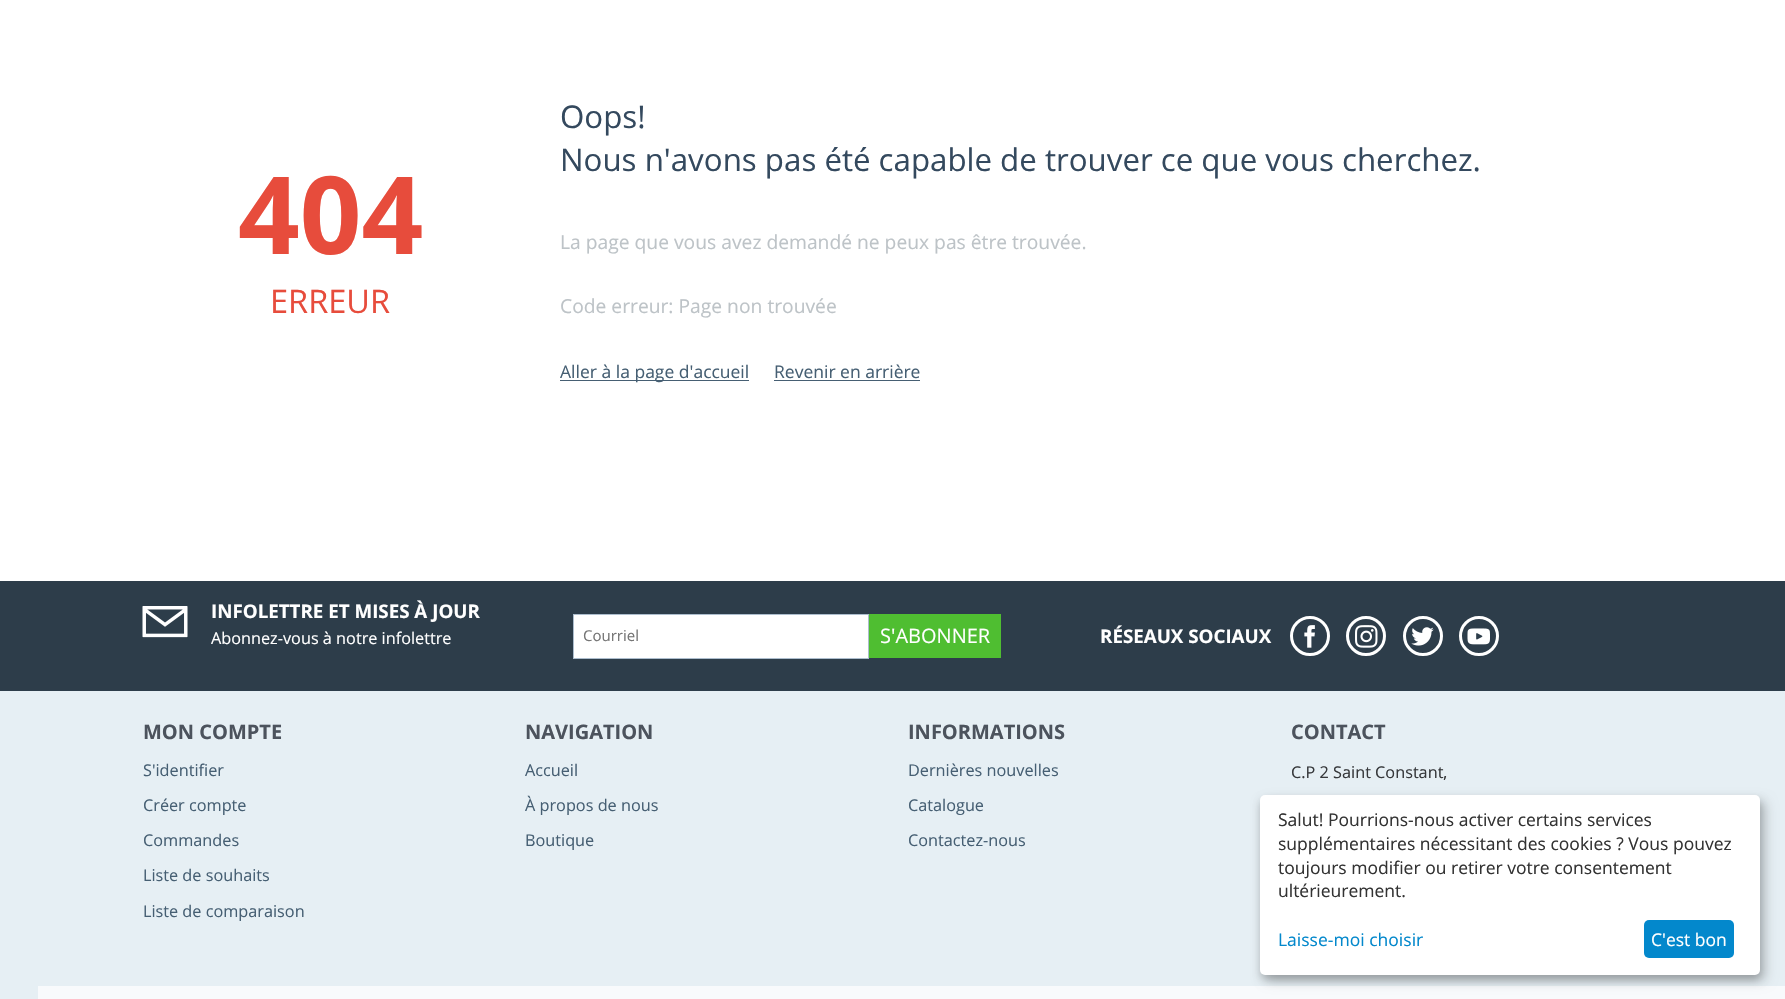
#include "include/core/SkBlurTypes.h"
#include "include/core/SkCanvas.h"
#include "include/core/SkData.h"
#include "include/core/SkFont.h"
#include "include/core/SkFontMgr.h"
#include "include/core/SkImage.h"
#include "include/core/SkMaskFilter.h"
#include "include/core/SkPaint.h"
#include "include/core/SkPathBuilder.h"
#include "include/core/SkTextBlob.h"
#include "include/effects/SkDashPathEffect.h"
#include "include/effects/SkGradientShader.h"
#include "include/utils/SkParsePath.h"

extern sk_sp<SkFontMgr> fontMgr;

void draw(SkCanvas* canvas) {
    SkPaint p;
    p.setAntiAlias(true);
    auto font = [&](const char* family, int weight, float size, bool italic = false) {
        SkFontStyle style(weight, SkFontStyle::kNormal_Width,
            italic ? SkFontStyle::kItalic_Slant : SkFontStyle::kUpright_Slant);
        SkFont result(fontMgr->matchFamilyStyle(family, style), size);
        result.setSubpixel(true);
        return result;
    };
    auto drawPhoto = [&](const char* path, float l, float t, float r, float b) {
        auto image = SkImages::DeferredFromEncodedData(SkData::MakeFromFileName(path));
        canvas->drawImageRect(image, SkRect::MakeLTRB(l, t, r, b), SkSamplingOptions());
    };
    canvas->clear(0xFFFFFFFF);
    auto font1 = font("Open Sans", 700, 108);
    p.setColor(0xFFE74C3C);
    canvas->drawString("404", 238, 254, font1, p);
    auto font2 = font("Open Sans", 400, 32.5f);
    canvas->drawString("ERREUR", 270, 313, font2, p);
    auto font3 = font("Open Sans", 400, 31.25f);
    p.setColor(0xFF34495E);
    canvas->drawString("Oops!", 560, 128, font3, p);
    canvas->drawString("Nous n'avons pas été capable de trouver ce que vous cherchez.", 560, 171, font3, p);
    auto font4 = font("Open Sans", 400, 19.25f);
    p.setColor(0xFFBDC3C7);
    canvas->drawString("La page que vous avez demandé ne peux pas être trouvée.", 560, 249, font4, p);
    canvas->drawString("Code erreur: Page non trouvée", 560, 313, font4, p);
    p.setColor(0xFF465F73);
    canvas->drawRect(SkRect::MakeLTRB(560, 380, 749, 381), p);
    auto font5 = font("Open Sans", 400, 17.5f);
    canvas->drawString("Aller à la page d'accueil", 560, 378, font5, p);
    canvas->drawString("Revenir en arrière", 774, 378, font5, p);
    {
        const struct { float l, t, r, b; SkColor color; } items[] = {
            {774, 380, 920, 381, 0xFF465F73},
            {0, 691, 1785, 999, 0xFFE6EFF4},
            {0, 581, 1785, 691, 0xFF2D3D4A},
        };
        for (auto [l, t, r, b, color] : items) {
            p.setColor(color);
            canvas->drawRect(SkRect::MakeLTRB(l, t, r, b), p);
        }
    }
    drawPhoto("media/1.png", 142, 606, 188, 638);
    auto font6 = font("Open Sans", 700, 18.75f);
    p.setColor(0xFFFFFFFF);
    canvas->drawString("INFOLETTRE ET MISES À JOUR", 211, 618, font6, p);
    auto font7 = font("Open Sans", 400, 16.25f);
    canvas->drawString("Abonnez-vous à notre infolettre", 211, 644, font7, p);
    canvas->drawRect(SkRect::MakeLTRB(573.5f, 614.5f, 868.5f, 658.5f), p);
    p.setStyle(SkPaint::kStroke_Style);
    p.setStrokeWidth(1);
    p.setColor(0xFFACBDCD);
    canvas->drawRect(SkRect::MakeLTRB(573.5f, 614.5f, 868.5f, 658.5f), p);
    auto font8 = font("Open Sans", 400, 15);
    p.setStyle(SkPaint::kFill_Style);
    p.setColor(0xFF757575);
    canvas->drawString("Courriel", 583, 641, font8, p);
    p.setColor(0xFF4FBE31);
    canvas->drawRect(SkRect::MakeLTRB(869, 614, 1001, 658), p);
    auto font9 = font("Open Sans", 400, 20);
    p.setColor(0xFFFFFFFF);
    canvas->drawString("S'ABONNER", 880, 643, font9, p);
    canvas->drawString("RÉSEAUX SOCIAUX", 1100, 643, font6, p);
    p.setStyle(SkPaint::kStroke_Style);
    p.setStrokeWidth(3);
    canvas->drawCircle(1310, 636, 18.5f, p);
    drawPhoto("media/2.png", 1304, 625, 1315, 648);
    canvas->drawCircle(1366, 636, 18.5f, p);
    drawPhoto("media/3.png", 1355, 625, 1378, 648);
    canvas->drawCircle(1423, 636, 18.5f, p);
    drawPhoto("media/4.png", 1411, 627, 1434, 646);
    canvas->drawCircle(1479, 636, 18.5f, p);
    drawPhoto("media/5.png", 1467, 628, 1490, 645);
    auto font10 = font("Open Sans", 700, 20);
    p.setStyle(SkPaint::kFill_Style);
    p.setColor(0xFF4C535D);
    canvas->drawString("MON COMPTE", 143, 739, font10, p);
    p.setColor(0xFF465F73);
    {
        const struct { const char* s; float x, y; } items[] = {
            {"S'identifier", 143, 776},
            {"Créer compte", 143, 811},
            {"Commandes", 143, 846},
            {"Liste de souhaits", 143, 881},
            {"Liste de comparaison", 143, 917},
        };
        for (auto [s, x, y] : items) {
            canvas->drawString(s, x, y, font7, p);
        }
    }
    p.setColor(0xFF4C535D);
    canvas->drawString("NAVIGATION", 525, 739, font10, p);
    p.setColor(0xFF465F73);
    {
        const struct { const char* s; float x, y; } items[] = {
            {"Accueil", 525, 776},
            {"À propos de nous", 525, 811},
            {"Boutique", 525, 846},
        };
        for (auto [s, x, y] : items) {
            canvas->drawString(s, x, y, font7, p);
        }
    }
    p.setColor(0xFF4C535D);
    canvas->drawString("INFORMATIONS", 908, 739, font10, p);
    p.setColor(0xFF465F73);
    {
        const struct { const char* s; float x, y; } items[] = {
            {"Dernières nouvelles", 908, 776},
            {"Catalogue", 908, 811},
            {"Contactez-nous", 908, 846},
        };
        for (auto [s, x, y] : items) {
            canvas->drawString(s, x, y, font7, p);
        }
    }
    p.setColor(0xFF4C535D);
    canvas->drawString("CONTACT", 1291, 739, font10, p);
    p.setColor(0xFF36383B);
    canvas->drawString("C.P 2 Saint Constant,", 1291, 778, font7, p);
    p.setColor(0xFFF8FAFC);
    canvas->drawRect(SkRect::MakeLTRB(38, 986, 1785, 999), p);
    p.setColor(0x30000000);
    p.setMaskFilter(SkMaskFilter::MakeBlur(kNormal_SkBlurStyle, 6));
    canvas->drawRoundRect(SkRect::MakeLTRB(1266, 801, 1766, 981), 5, 5, p);
    p.setMaskFilter(nullptr);
    p.setColor(0x33000000);
    p.setMaskFilter(SkMaskFilter::MakeBlur(kNormal_SkBlurStyle, 4));
    canvas->drawRoundRect(SkRect::MakeLTRB(1260, 800, 1760, 980), 5, 5, p);
    p.setMaskFilter(nullptr);
    p.setColor(0xFFFFFFFF);
    canvas->drawRoundRect(SkRect::MakeLTRB(1260, 795, 1760, 975), 5, 5, p);
    p.setColor(0xFF333333);
    {
        const struct { const char* s; float x, y; } items[] = {
            {"Salut! Pourrions-nous activer certains services", 1278, 826},
            {"supplémentaires nécessitant des cookies ? Vous pouvez", 1278, 850},
            {"toujours modifier ou retirer votre consentement", 1278, 874},
            {"ultérieurement.", 1278, 897},
        };
        for (auto [s, x, y] : items) {
            canvas->drawString(s, x, y, font5, p);
        }
    }
    p.setColor(0xFF0388CC);
    canvas->drawString("Laisse-moi choisir", 1278, 946, font5, p);
    canvas->drawRoundRect(SkRect::MakeLTRB(1644, 920, 1734, 958), 5, 5, p);
    p.setColor(0xFFFFFFFF);
    canvas->drawString("C'est bon", 1651, 946, font5, p);
}
